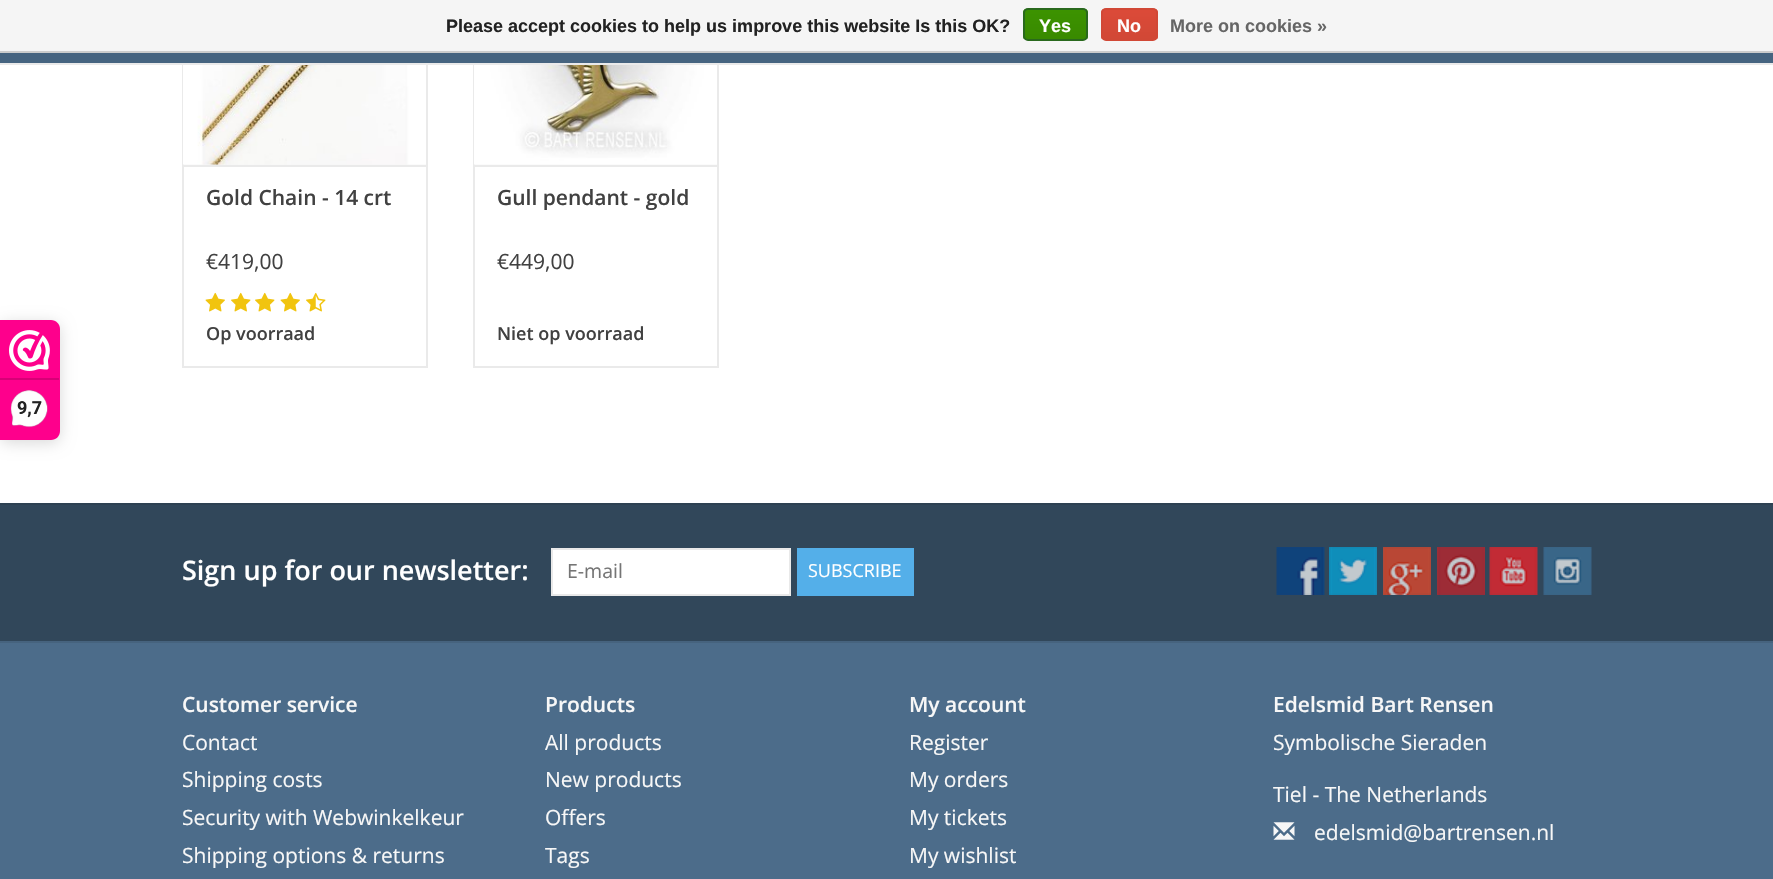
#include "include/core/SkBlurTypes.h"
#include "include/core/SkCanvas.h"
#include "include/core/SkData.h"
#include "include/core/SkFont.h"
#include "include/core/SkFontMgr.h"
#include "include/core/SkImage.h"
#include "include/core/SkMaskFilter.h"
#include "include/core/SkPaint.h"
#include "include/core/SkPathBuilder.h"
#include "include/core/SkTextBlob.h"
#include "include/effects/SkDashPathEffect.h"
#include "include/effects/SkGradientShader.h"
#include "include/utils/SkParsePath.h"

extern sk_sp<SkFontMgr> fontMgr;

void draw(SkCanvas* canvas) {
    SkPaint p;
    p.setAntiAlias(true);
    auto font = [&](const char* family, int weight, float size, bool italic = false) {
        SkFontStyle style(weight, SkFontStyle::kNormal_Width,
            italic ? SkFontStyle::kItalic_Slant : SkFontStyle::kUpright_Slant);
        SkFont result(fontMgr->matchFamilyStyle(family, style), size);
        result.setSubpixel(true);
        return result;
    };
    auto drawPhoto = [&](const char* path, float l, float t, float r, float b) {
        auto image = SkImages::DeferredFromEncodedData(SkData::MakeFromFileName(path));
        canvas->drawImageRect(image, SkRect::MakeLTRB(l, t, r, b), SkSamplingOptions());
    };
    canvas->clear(0xFFFFFFFF);
    p.setColor(0xFFF5F5F5);
    canvas->drawRect(SkRect::MakeLTRB(0, 0, 1773, 51), p);
    p.setColor(0xFFCCCCCC);
    canvas->drawRect(SkRect::MakeLTRB(0, 51, 1773, 53), p);
    auto font1 = font("Liberation Sans", 700, 18);
    p.setColor(0xFF222222);
    canvas->drawString("Please accept cookies to help us improve this website Is this OK?", 446, 32, font1, p);
    canvas->save();
    canvas->clipPath(SkPathBuilder().moveTo(1028, 8).lineTo(1083, 8).cubicTo(1086, 8, 1088, 10, 1088, 13).lineTo(1088, 36).cubicTo(1088, 39, 1086, 41, 1083, 41).lineTo(1028, 41).cubicTo(1025, 41, 1023, 39, 1023, 36).lineTo(1023, 13).cubicTo(1023, 10, 1025, 8, 1028, 8).close().detach(), true);
    {
        const SkColor colors[] = {0xFF3C9300, 0xFF398A00};
        const float stops[] = {0, 1};
        const SkPoint ends[] = {{1055, 9}, {1055, 39}};
        p.setShader(SkGradientShader::MakeLinear(ends, colors, stops, 2, SkTileMode::kClamp));
        p.setAlpha(255);
    }
    canvas->drawRect(SkRect::MakeLTRB(1023, 9, 1088, 39), p);
    canvas->restore();
    p.setStyle(SkPaint::kStroke_Style);
    p.setStrokeWidth(2);
    p.setShader(nullptr);
    p.setColor(0xFF29691D);
    canvas->drawRoundRect(SkRect::MakeLTRB(1024, 9, 1087, 40), 4, 4, p);
    p.setStyle(SkPaint::kFill_Style);
    p.setColor(0xFFFFFFFF);
    canvas->drawString("Yes", 1039, 32, font1, p);
    canvas->save();
    canvas->clipPath(SkPathBuilder().moveTo(1106, 8).lineTo(1153, 8).cubicTo(1156, 8, 1158, 10, 1158, 13).lineTo(1158, 36).cubicTo(1158, 39, 1156, 41, 1153, 41).lineTo(1106, 41).cubicTo(1103, 41, 1101, 39, 1101, 36).lineTo(1101, 13).cubicTo(1101, 10, 1103, 8, 1106, 8).close().detach(), true);
    {
        const SkColor colors[] = {0xFFDC4A38, 0xFFD14836};
        const float stops[] = {0, 1};
        const SkPoint ends[] = {{1130, 9}, {1130, 39}};
        p.setShader(SkGradientShader::MakeLinear(ends, colors, stops, 2, SkTileMode::kClamp));
        p.setAlpha(255);
    }
    canvas->drawRect(SkRect::MakeLTRB(1101, 9, 1158, 39), p);
    canvas->restore();
    p.setStyle(SkPaint::kStroke_Style);
    p.setShader(nullptr);
    p.setColor(0xFFD14836);
    canvas->drawRoundRect(SkRect::MakeLTRB(1102, 9, 1157, 40), 4, 4, p);
    p.setStyle(SkPaint::kFill_Style);
    p.setColor(0xFFFFFFFF);
    canvas->drawString("No", 1117, 32, font1, p);
    p.setColor(0xFF666666);
    canvas->drawString("More on cookies »", 1170, 32, font1, p);
    p.setColor(0xFF466480);
    canvas->drawRect(SkRect::MakeLTRB(0, 53, 1773, 63), p);
    p.setColor(0xFFEAEAEA);
    canvas->drawRect(SkRect::MakeLTRB(0, 63, 1773, 65), p);
    p.setColor(0x26000000);
    p.setMaskFilter(SkMaskFilter::MakeBlur(kNormal_SkBlurStyle, 7.5f));
    canvas->drawRoundRect(SkRect::MakeLTRB(0, 323, 60, 443), 9, 9, p);
    p.setMaskFilter(nullptr);
    p.setColor(0xFFFE008C);
    canvas->drawPath(SkPathBuilder().moveTo(0, 320).lineTo(51, 320).cubicTo(56, 320, 60, 324, 60, 329).lineTo(60, 431).cubicTo(60, 436, 56, 440, 51, 440).lineTo(0, 440).close().detach(), p);
    drawPhoto("media/1.png", 9, 330, 50, 371);
    p.setColor(0xFFD80077);
    canvas->drawRect(SkRect::MakeLTRB(0, 378, 59, 380), p);
    drawPhoto("media/2.png", 10, 390, 48, 428);
    auto font2 = font("Roboto", 700, 18);
    p.setColor(0xFF222222);
    canvas->drawString("9,7", 17, 414, font2, p);
    {
        const struct { float l, t, r, b; SkColor color; } items[] = {
            {184, 164, 426, 165, 0xFFF7F7F7},
            {426, 65, 428, 165, 0xFFEAEAEA},
            {182, 65, 184, 165, 0xFFEAEAEA},
        };
        for (auto [l, t, r, b, color] : items) {
            p.setColor(color);
            canvas->drawRect(SkRect::MakeLTRB(l, t, r, b), p);
        }
    }
    drawPhoto("media/3.png", 183, 65, 426, 165);
    p.setStyle(SkPaint::kStroke_Style);
    canvas->drawRect(SkRect::MakeLTRB(183, 166, 427, 367), p);
    auto font3 = font("Open Sans", 600, 21);
    p.setStyle(SkPaint::kFill_Style);
    p.setColor(0xFF414141);
    canvas->drawString("Gold Chain - 14 crt", 206, 205, font3, p);
    auto font4 = font("Open Sans", 400, 21);
    canvas->drawString("€419,00", 206, 269, font4, p);
    drawPhoto("media/4.png", 205, 292, 225, 312);
    drawPhoto("media/5.png", 231, 292, 251, 312);
    drawPhoto("media/5.png", 255, 292, 275, 312);
    drawPhoto("media/4.png", 280, 292, 300, 312);
    drawPhoto("media/6.png", 306, 292, 326, 312);
    auto font5 = font("Open Sans", 600, 18);
    canvas->drawString("Op voorraad", 206, 340, font5, p);
    {
        const struct { float l, t, r, b; SkColor color; } items[] = {
            {475, 164, 717, 165, 0xFFF7F7F7},
            {717, 65, 719, 165, 0xFFEAEAEA},
            {473, 65, 475, 165, 0xFFEAEAEA},
        };
        for (auto [l, t, r, b, color] : items) {
            p.setColor(color);
            canvas->drawRect(SkRect::MakeLTRB(l, t, r, b), p);
        }
    }
    drawPhoto("media/7.png", 474, 65, 717, 165);
    p.setStyle(SkPaint::kStroke_Style);
    canvas->drawRect(SkRect::MakeLTRB(474, 166, 718, 367), p);
    p.setStyle(SkPaint::kFill_Style);
    p.setColor(0xFF414141);
    canvas->drawString("Gull pendant - gold", 497, 205, font3, p);
    canvas->drawString("€449,00", 497, 269, font4, p);
    canvas->drawString("Niet op voorraad", 497, 340, font5, p);
    {
        const struct { float l, t, r, b; SkColor color; } items[] = {
            {0, 643, 1773, 879, 0xFF4C6C8A},
            {0, 503, 1773, 505, 0xFF2D4152},
            {0, 505, 1773, 641, 0xFF31475A},
        };
        for (auto [l, t, r, b, color] : items) {
            p.setColor(color);
            canvas->drawRect(SkRect::MakeLTRB(l, t, r, b), p);
        }
    }
    auto font6 = font("Open Sans", 600, 27);
    p.setColor(0xFFFFFFFF);
    canvas->drawString("Sign up for our newsletter:", 182, 580, font6, p);
    canvas->drawRect(SkRect::MakeLTRB(552, 549, 790, 595), p);
    p.setStyle(SkPaint::kStroke_Style);
    p.setColor(0xFFE9E9E9);
    canvas->drawRect(SkRect::MakeLTRB(552, 549, 790, 595), p);
    auto font7 = font("Open Sans", 400, 19.5f);
    p.setStyle(SkPaint::kFill_Style);
    p.setColor(0xFF757575);
    canvas->drawString("E-mail", 567, 578, font7, p);
    p.setColor(0xFF54AFE9);
    canvas->drawRect(SkRect::MakeLTRB(797, 548, 914, 596), p);
    auto font8 = font("Open Sans", 400, 18);
    p.setColor(0xFFFFFFFF);
    canvas->drawString("SUBSCRIBE", 808, 577, font8, p);
    drawPhoto("media/8.png", 1276, 547, 1325, 595);
    drawPhoto("media/9.png", 1329, 547, 1377, 595);
    drawPhoto("media/10.png", 1383, 547, 1431, 595);
    drawPhoto("media/11.png", 1437, 547, 1485, 595);
    drawPhoto("media/12.png", 1489, 547, 1538, 595);
    drawPhoto("media/13.png", 1543, 547, 1592, 595);
    p.setColor(0xFF46637E);
    canvas->drawRect(SkRect::MakeLTRB(0, 641, 1773, 643), p);
    p.setColor(0xFFF7F7F7);
    canvas->drawString("Customer service", 182, 712, font3, p);
    {
        const struct { const char* s; float x, y; } items[] = {
            {"Contact", 182, 750},
            {"Shipping costs", 182, 787},
            {"Security with Webwinkelkeur", 182, 825},
            {"Shipping options & returns", 182, 863},
        };
        for (auto [s, x, y] : items) {
            canvas->drawString(s, x, y, font4, p);
        }
    }
    canvas->drawString("Products", 545, 712, font3, p);
    {
        const struct { const char* s; float x, y; } items[] = {
            {"All products", 545, 750},
            {"New products", 545, 787},
            {"Offers", 545, 825},
            {"Tags", 545, 863},
        };
        for (auto [s, x, y] : items) {
            canvas->drawString(s, x, y, font4, p);
        }
    }
    canvas->drawString("My account", 909, 712, font3, p);
    {
        const struct { const char* s; float x, y; } items[] = {
            {"Register", 909, 750},
            {"My orders", 909, 787},
            {"My tickets", 909, 825},
            {"My wishlist", 909, 863},
        };
        for (auto [s, x, y] : items) {
            canvas->drawString(s, x, y, font4, p);
        }
    }
    canvas->drawString("Edelsmid Bart Rensen", 1273, 712, font3, p);
    canvas->drawString("Symbolische Sieraden", 1273, 750, font4, p);
    canvas->drawString("Tiel - The Netherlands", 1273, 802, font4, p);
    drawPhoto("media/14.png", 1273, 822, 1295, 840);
    canvas->drawString("edelsmid@bartrensen.nl", 1314, 840, font4, p);
}
